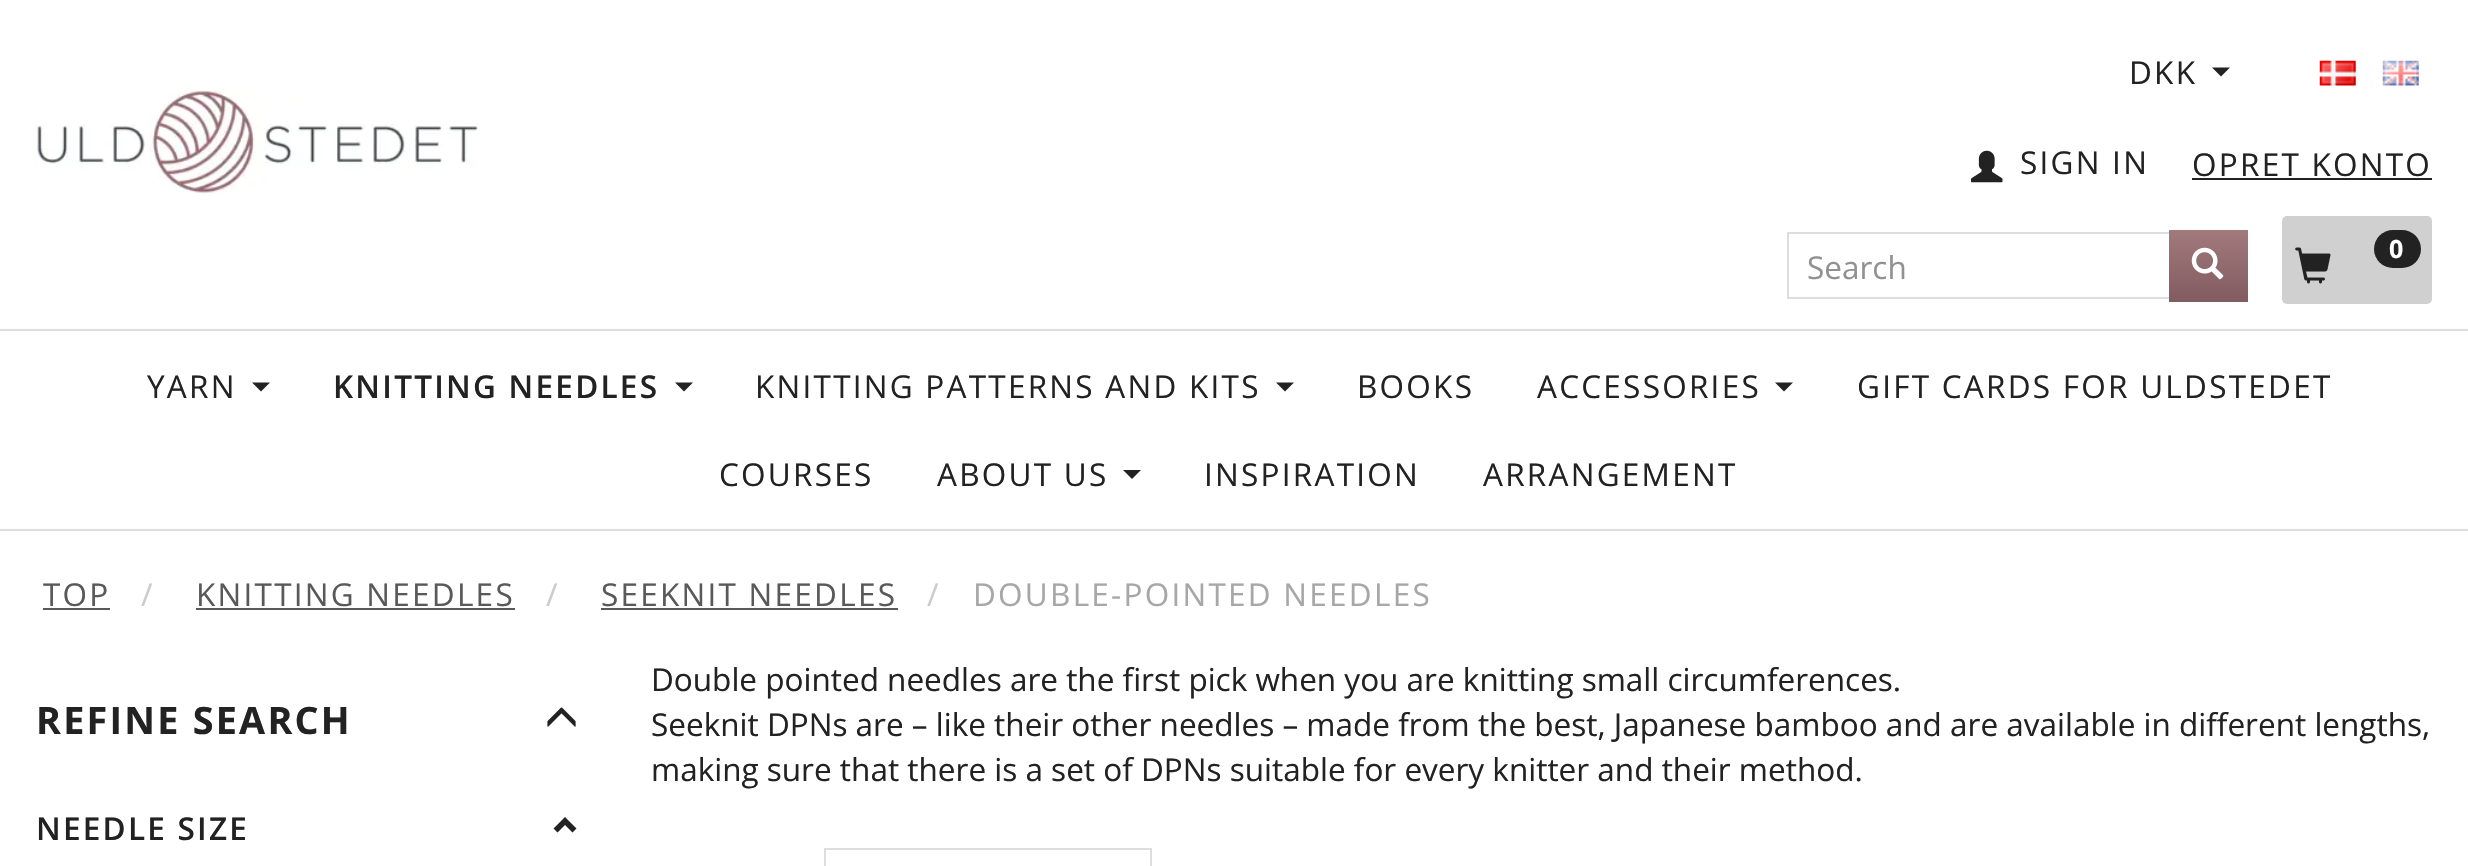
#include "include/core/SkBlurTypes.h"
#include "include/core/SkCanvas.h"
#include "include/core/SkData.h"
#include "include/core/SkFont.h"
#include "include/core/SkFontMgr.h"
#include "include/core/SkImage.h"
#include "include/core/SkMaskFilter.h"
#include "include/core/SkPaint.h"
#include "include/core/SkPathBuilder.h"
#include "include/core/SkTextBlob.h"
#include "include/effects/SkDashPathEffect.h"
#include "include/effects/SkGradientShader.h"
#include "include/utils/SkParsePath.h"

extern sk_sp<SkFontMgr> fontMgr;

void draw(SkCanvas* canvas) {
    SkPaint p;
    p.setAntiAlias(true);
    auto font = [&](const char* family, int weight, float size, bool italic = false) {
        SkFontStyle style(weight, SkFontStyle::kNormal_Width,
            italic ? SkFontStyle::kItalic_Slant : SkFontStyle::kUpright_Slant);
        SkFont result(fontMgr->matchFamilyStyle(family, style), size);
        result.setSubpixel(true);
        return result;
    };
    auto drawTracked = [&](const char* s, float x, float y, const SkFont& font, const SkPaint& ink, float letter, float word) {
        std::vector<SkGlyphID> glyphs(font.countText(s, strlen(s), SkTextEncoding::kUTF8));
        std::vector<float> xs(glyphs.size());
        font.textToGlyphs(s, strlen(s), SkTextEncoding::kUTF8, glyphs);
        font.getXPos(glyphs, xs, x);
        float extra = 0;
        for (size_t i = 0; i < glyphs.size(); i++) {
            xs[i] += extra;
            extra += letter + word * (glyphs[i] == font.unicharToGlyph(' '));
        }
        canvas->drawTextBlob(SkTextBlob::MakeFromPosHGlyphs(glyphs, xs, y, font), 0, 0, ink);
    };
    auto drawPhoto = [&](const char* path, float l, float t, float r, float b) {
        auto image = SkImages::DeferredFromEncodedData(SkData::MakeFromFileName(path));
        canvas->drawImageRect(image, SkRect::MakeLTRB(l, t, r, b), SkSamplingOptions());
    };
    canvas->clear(0xFFFFFFFF);
    drawPhoto("media/1.png", 35, 90, 478, 194);
    auto font1 = font("Open Sans", 400, 31.5f);
    p.setColor(0xFF222222);
    drawTracked("DKK", 2129, 84, font1, p, 2.25f, 0);
    canvas->drawPath(SkPathBuilder().moveTo(2212, 67.5f).lineTo(2230, 67.5f).lineTo(2221, 76.5f).close().detach(), p);
    drawPhoto("media/2.png", 2319, 60, 2356, 86);
    drawPhoto("media/3.png", 2382, 60, 2419, 86);
    drawPhoto("media/4.png", 1971, 150, 2003, 183);
    drawTracked("SIGN IN", 2020, 174, font1, p, 2.25f, 0);
    drawTracked("OPRET KONTO", 2192, 176, font1, p, 2.25f, 0);
    canvas->drawRect(SkRect::MakeLTRB(2192, 178, 2432, 180), p);
    p.setColor(0xFFCFD0CF);
    canvas->drawRoundRect(SkRect::MakeLTRB(2282, 216, 2432, 304), 5, 5, p);
    drawPhoto("media/5.png", 2295, 247, 2331, 284);
    p.setColor(0xFF222222);
    canvas->drawRoundRect(SkRect::MakeLTRB(2374, 230, 2421, 268), 19, 19, p);
    auto font2 = font("Open Sans", 700, 25);
    p.setColor(0xFFFFFFFF);
    drawTracked("0", 2389, 258, font2, p, 2.25f, 0);
    p.setStyle(SkPaint::kStroke_Style);
    p.setStrokeWidth(2);
    p.setColor(0xFFDDDDDD);
    canvas->drawRect(SkRect::MakeLTRB(1788, 233, 2247, 298), p);
    p.setStyle(SkPaint::kFill_Style);
    p.setColor(0xFF919191);
    canvas->drawString("Search", 1807, 279, font1, p);
    {
        const SkColor colors[] = {0xFFA27A7E, 0xFF815B5F};
        const float stops[] = {0, 1};
        const SkPoint ends[] = {{2208, 230}, {2208, 302}};
        p.setShader(SkGradientShader::MakeLinear(ends, colors, stops, 2, SkTileMode::kClamp));
        p.setAlpha(255);
    }
    canvas->drawRect(SkRect::MakeLTRB(2169, 230, 2248, 302), p);
    drawPhoto("media/6.png", 2191, 247, 2224, 280);
    p.setShader(nullptr);
    p.setColor(0xFFDDDDDD);
    canvas->drawRect(SkRect::MakeLTRB(0, 329, 2468, 331), p);
    canvas->drawRect(SkRect::MakeLTRB(0, 529, 2468, 531), p);
    p.setColor(0xFF222222);
    drawTracked("YARN", 147, 398, font1, p, 2.25f, 0);
    canvas->drawPath(SkPathBuilder().moveTo(252, 382.5f).lineTo(270, 382.5f).lineTo(261, 391.5f).close().detach(), p);
    auto font3 = font("Open Sans", 600, 31.5f);
    drawTracked("KNITTING NEEDLES", 333, 398, font3, p, 2.25f, 0);
    canvas->drawPath(SkPathBuilder().moveTo(675, 382.5f).lineTo(693, 382.5f).lineTo(684, 391.5f).close().detach(), p);
    drawTracked("KNITTING PATTERNS AND KITS", 755, 398, font1, p, 2.25f, 0);
    canvas->drawPath(SkPathBuilder().moveTo(1276, 382.5f).lineTo(1294, 382.5f).lineTo(1285, 391.5f).close().detach(), p);
    drawTracked("BOOKS", 1357, 398, font1, p, 2.25f, 0);
    drawTracked("ACCESSORIES", 1537, 398, font1, p, 2.25f, 0);
    canvas->drawPath(SkPathBuilder().moveTo(1775, 382.5f).lineTo(1793, 382.5f).lineTo(1784, 391.5f).close().detach(), p);
    {
        const struct { const char* s; float x, y; } items[] = {
            {"GIFT CARDS FOR ULDSTEDET", 1857, 398},
            {"COURSES", 719, 486},
            {"ABOUT US", 937, 486},
        };
        for (auto [s, x, y] : items) {
            drawTracked(s, x, y, font1, p, 2.25f, 0);
        }
    }
    canvas->drawPath(SkPathBuilder().moveTo(1123, 470).lineTo(1141, 470).lineTo(1132, 479).close().detach(), p);
    drawTracked("INSPIRATION", 1204, 486, font1, p, 2.25f, 0);
    drawTracked("ARRANGEMENT", 1483, 486, font1, p, 2.25f, 0);
    p.setColor(0xFF595959);
    drawTracked("TOP", 43, 606, font1, p, 2.25f, 0);
    canvas->drawRect(SkRect::MakeLTRB(43, 608, 110, 610), p);
    p.setColor(0xFFCCCCCC);
    drawTracked("/", 141, 606, font1, p, 2.25f, 0);
    p.setColor(0xFF595959);
    drawTracked("KNITTING NEEDLES", 196, 606, font1, p, 2.25f, 0);
    canvas->drawRect(SkRect::MakeLTRB(196, 608, 515, 610), p);
    p.setColor(0xFFCCCCCC);
    drawTracked("/", 546, 606, font1, p, 2.25f, 0);
    p.setColor(0xFF595959);
    drawTracked("SEEKNIT NEEDLES", 601, 606, font1, p, 2.25f, 0);
    canvas->drawRect(SkRect::MakeLTRB(601, 608, 898, 610), p);
    p.setColor(0xFFCCCCCC);
    drawTracked("/", 927, 606, font1, p, 2.25f, 0);
    p.setColor(0xFFA7A7A7);
    drawTracked("DOUBLE-POINTED NEEDLES", 973, 606, font1, p, 2.25f, 0);
    auto font4 = font("Open Sans", 700, 37.75f);
    p.setColor(0xFF222222);
    drawTracked("REFINE SEARCH", 36, 734, font4, p, 2.25f, 0);
    drawPhoto("media/7.png", 547, 707, 576, 727);
    drawTracked("NEEDLE SIZE", 36, 840, font3, p, 2.25f, 0);
    canvas->drawPath(SkPathBuilder().moveTo(576.5f, 828.5f).lineTo(572.5f, 832.5f).lineTo(565, 825).lineTo(557.5f, 832.5f).lineTo(553.5f, 828.5f).lineTo(565, 817).close().detach(), p);
    {
        const struct { const char* s; float x, y; } items[] = {
            {"Double pointed needles are the first pick when you are knitting small circumferences.", 651, 691},
            {"Seeknit DPNs are – like their other needles – made from the best, Japanese bamboo and are available in different lengths,", 651, 736},
            {"making sure that there is a set of DPNs suitable for every knitter and their method.", 651, 781},
        };
        for (auto [s, x, y] : items) {
            canvas->drawString(s, x, y, font1, p);
        }
    }
    p.setStyle(SkPaint::kStroke_Style);
    p.setColor(0xFFDDDDDD);
    canvas->drawRect(SkRect::MakeLTRB(825, 849, 1151, 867), p);
}
